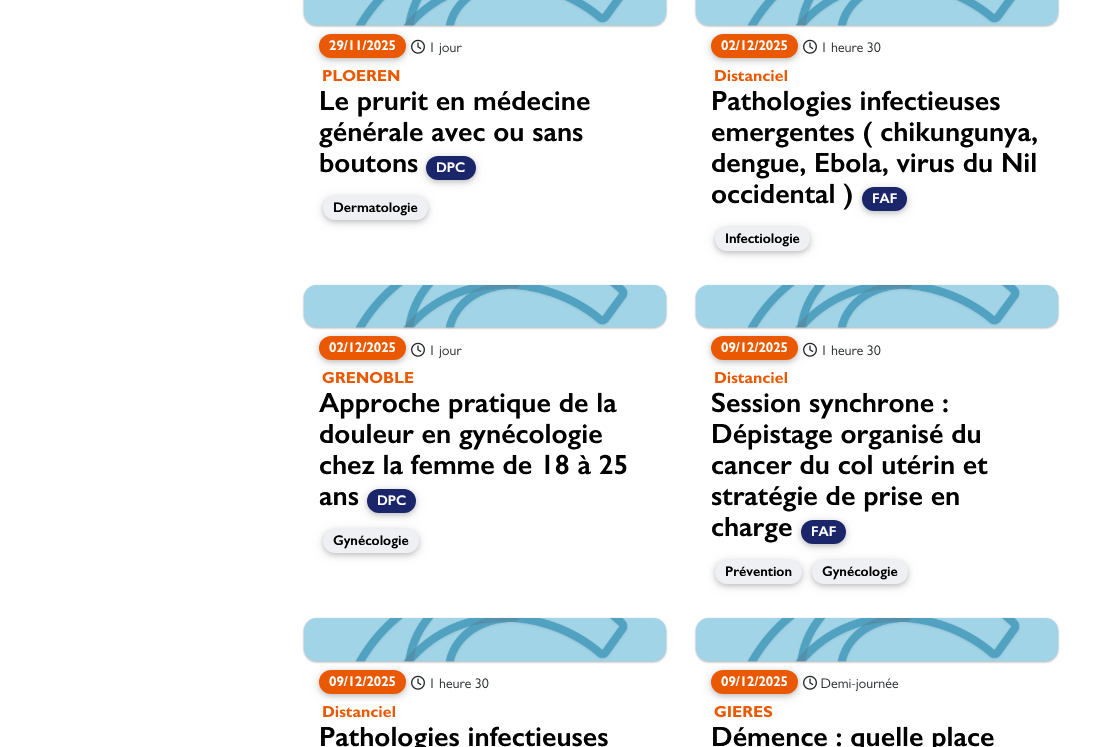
#include "include/core/SkBlurTypes.h"
#include "include/core/SkCanvas.h"
#include "include/core/SkData.h"
#include "include/core/SkFont.h"
#include "include/core/SkFontMgr.h"
#include "include/core/SkImage.h"
#include "include/core/SkMaskFilter.h"
#include "include/core/SkPaint.h"
#include "include/core/SkPathBuilder.h"
#include "include/core/SkTextBlob.h"
#include "include/effects/SkDashPathEffect.h"
#include "include/effects/SkGradientShader.h"
#include "include/utils/SkParsePath.h"

extern sk_sp<SkFontMgr> fontMgr;

void draw(SkCanvas* canvas) {
    SkPaint p;
    p.setAntiAlias(true);
    auto font = [&](const char* family, int weight, float size, bool italic = false) {
        SkFontStyle style(weight, SkFontStyle::kNormal_Width,
            italic ? SkFontStyle::kItalic_Slant : SkFontStyle::kUpright_Slant);
        SkFont result(fontMgr->matchFamilyStyle(family, style), size);
        result.setSubpixel(true);
        return result;
    };
    auto drawPhoto = [&](const char* path, float l, float t, float r, float b) {
        auto image = SkImages::DeferredFromEncodedData(SkData::MakeFromFileName(path));
        canvas->drawImageRect(image, SkRect::MakeLTRB(l, t, r, b), SkSamplingOptions());
    };
    canvas->clear(0xFFFFFFFF);
    p.setColor(0x1F000000);
    p.setMaskFilter(SkMaskFilter::MakeBlur(kNormal_SkBlurStyle, 5));
    canvas->drawRoundRect(SkRect::MakeLTRB(319, 36, 406, 60), 12, 12, p);
    p.setMaskFilter(nullptr);
    p.setColor(0x29000000);
    p.setMaskFilter(SkMaskFilter::MakeBlur(kNormal_SkBlurStyle, 2.5f));
    canvas->drawRoundRect(SkRect::MakeLTRB(319, 36, 406, 60), 12, 12, p);
    p.setMaskFilter(nullptr);
    drawPhoto("media/1.png", 302, 0, 668, 28);
    p.setColor(0xFFEA5902);
    canvas->drawRoundRect(SkRect::MakeLTRB(319, 34, 406, 58), 12, 12, p);
    auto font1 = font("Gill Sans", 600, 14);
    p.setColor(0xFFFFFFFF);
    canvas->drawString("29/11/2025", 329, 50, font1, p);
    drawPhoto("media/2.png", 411, 39, 425, 54);
    drawPhoto("media/3.png", 431, 42, 462, 56);
    drawPhoto("media/4.png", 323, 69, 400, 82);
    auto font2 = font("Gill Sans", 600, 28);
    p.setColor(0xFF000000);
    {
        const struct { const char* s; float x, y; } items[] = {
            {"Le prurit en médecine", 319, 110},
            {"générale avec ou sans", 319, 141},
            {"boutons", 319, 172},
        };
        for (auto [s, x, y] : items) {
            canvas->drawString(s, x, y, font2, p);
        }
    }
    p.setColor(0x1F000000);
    p.setMaskFilter(SkMaskFilter::MakeBlur(kNormal_SkBlurStyle, 5));
    canvas->drawRoundRect(SkRect::MakeLTRB(426, 158, 476, 182), 12, 12, p);
    p.setMaskFilter(nullptr);
    p.setColor(0x29000000);
    p.setMaskFilter(SkMaskFilter::MakeBlur(kNormal_SkBlurStyle, 2.5f));
    canvas->drawRoundRect(SkRect::MakeLTRB(426, 158, 476, 182), 12, 12, p);
    p.setMaskFilter(nullptr);
    p.setColor(0xFF1A2669);
    canvas->drawRoundRect(SkRect::MakeLTRB(426, 156, 476, 180), 12, 12, p);
    p.setColor(0xFFFFFFFF);
    canvas->drawString("DPC", 436, 172, font1, p);
    p.setColor(0x1F000000);
    p.setMaskFilter(SkMaskFilter::MakeBlur(kNormal_SkBlurStyle, 5));
    canvas->drawRoundRect(SkRect::MakeLTRB(323, 198, 428, 222), 12, 12, p);
    p.setMaskFilter(nullptr);
    p.setColor(0x29000000);
    p.setMaskFilter(SkMaskFilter::MakeBlur(kNormal_SkBlurStyle, 2.5f));
    canvas->drawRoundRect(SkRect::MakeLTRB(323, 198, 428, 222), 12, 12, p);
    p.setMaskFilter(nullptr);
    p.setColor(0xFFEFF0F4);
    canvas->drawRoundRect(SkRect::MakeLTRB(323, 196, 428, 220), 12, 12, p);
    p.setColor(0xFF000000);
    canvas->drawString("Dermatologie", 333, 212, font1, p);
    p.setColor(0x1F000000);
    p.setMaskFilter(SkMaskFilter::MakeBlur(kNormal_SkBlurStyle, 5));
    canvas->drawRoundRect(SkRect::MakeLTRB(711, 36, 798, 60), 12, 12, p);
    p.setMaskFilter(nullptr);
    p.setColor(0x29000000);
    p.setMaskFilter(SkMaskFilter::MakeBlur(kNormal_SkBlurStyle, 2.5f));
    canvas->drawRoundRect(SkRect::MakeLTRB(711, 36, 798, 60), 12, 12, p);
    p.setMaskFilter(nullptr);
    drawPhoto("media/1.png", 694, 0, 1060, 28);
    p.setColor(0xFFEA5902);
    canvas->drawRoundRect(SkRect::MakeLTRB(711, 34, 798, 58), 12, 12, p);
    p.setColor(0xFFFFFFFF);
    canvas->drawString("02/12/2025", 721, 50, font1, p);
    drawPhoto("media/2.png", 803, 39, 817, 54);
    drawPhoto("media/5.png", 823, 42, 881, 53);
    drawPhoto("media/6.png", 715, 69, 787, 82);
    p.setColor(0xFF000000);
    {
        const struct { const char* s; float x, y; } items[] = {
            {"Pathologies infectieuses", 711, 110},
            {"emergentes ( chikungunya,", 711, 141},
            {"dengue, Ebola, virus du Nil", 711, 172},
            {"occidental )", 711, 203},
        };
        for (auto [s, x, y] : items) {
            canvas->drawString(s, x, y, font2, p);
        }
    }
    p.setColor(0x1F000000);
    p.setMaskFilter(SkMaskFilter::MakeBlur(kNormal_SkBlurStyle, 5));
    canvas->drawRoundRect(SkRect::MakeLTRB(862, 189, 907, 213), 12, 12, p);
    p.setMaskFilter(nullptr);
    p.setColor(0x29000000);
    p.setMaskFilter(SkMaskFilter::MakeBlur(kNormal_SkBlurStyle, 2.5f));
    canvas->drawRoundRect(SkRect::MakeLTRB(862, 189, 907, 213), 12, 12, p);
    p.setMaskFilter(nullptr);
    p.setColor(0xFF1A2669);
    canvas->drawRoundRect(SkRect::MakeLTRB(862, 187, 907, 211), 12, 12, p);
    p.setColor(0xFFFFFFFF);
    canvas->drawString("FAF", 872, 203, font1, p);
    p.setColor(0x1F000000);
    p.setMaskFilter(SkMaskFilter::MakeBlur(kNormal_SkBlurStyle, 5));
    canvas->drawRoundRect(SkRect::MakeLTRB(715, 229, 810, 253), 12, 12, p);
    p.setMaskFilter(nullptr);
    p.setColor(0x29000000);
    p.setMaskFilter(SkMaskFilter::MakeBlur(kNormal_SkBlurStyle, 2.5f));
    canvas->drawRoundRect(SkRect::MakeLTRB(715, 229, 810, 253), 12, 12, p);
    p.setMaskFilter(nullptr);
    p.setColor(0xFFEFF0F4);
    canvas->drawRoundRect(SkRect::MakeLTRB(715, 227, 810, 251), 12, 12, p);
    p.setColor(0xFF000000);
    canvas->drawString("Infectiologie", 725, 243, font1, p);
    p.setColor(0x1F000000);
    p.setMaskFilter(SkMaskFilter::MakeBlur(kNormal_SkBlurStyle, 5));
    canvas->drawRoundRect(SkRect::MakeLTRB(319, 338, 406, 362), 12, 12, p);
    p.setMaskFilter(nullptr);
    p.setColor(0x29000000);
    p.setMaskFilter(SkMaskFilter::MakeBlur(kNormal_SkBlurStyle, 2.5f));
    canvas->drawRoundRect(SkRect::MakeLTRB(319, 338, 406, 362), 12, 12, p);
    p.setMaskFilter(nullptr);
    drawPhoto("media/7.png", 302, 284, 668, 330);
    p.setColor(0xFFEA5902);
    canvas->drawRoundRect(SkRect::MakeLTRB(319, 336, 406, 360), 12, 12, p);
    p.setColor(0xFFFFFFFF);
    canvas->drawString("02/12/2025", 329, 352, font1, p);
    drawPhoto("media/8.png", 411, 342, 425, 357);
    drawPhoto("media/3.png", 431, 345, 462, 359);
    drawPhoto("media/9.png", 322, 371, 414, 384);
    p.setColor(0xFF000000);
    {
        const struct { const char* s; float x, y; } items[] = {
            {"Approche pratique de la", 319, 412},
            {"douleur en gynécologie", 319, 443},
            {"chez la femme de 18 à 25", 319, 474},
            {"ans", 319, 505},
        };
        for (auto [s, x, y] : items) {
            canvas->drawString(s, x, y, font2, p);
        }
    }
    p.setColor(0x1F000000);
    p.setMaskFilter(SkMaskFilter::MakeBlur(kNormal_SkBlurStyle, 5));
    canvas->drawRoundRect(SkRect::MakeLTRB(367, 491, 416, 515), 12, 12, p);
    p.setMaskFilter(nullptr);
    p.setColor(0x29000000);
    p.setMaskFilter(SkMaskFilter::MakeBlur(kNormal_SkBlurStyle, 2.5f));
    canvas->drawRoundRect(SkRect::MakeLTRB(367, 491, 416, 515), 12, 12, p);
    p.setMaskFilter(nullptr);
    p.setColor(0xFF1A2669);
    canvas->drawRoundRect(SkRect::MakeLTRB(367, 489, 416, 513), 12, 12, p);
    p.setColor(0xFFFFFFFF);
    canvas->drawString("DPC", 377, 505, font1, p);
    p.setColor(0x1F000000);
    p.setMaskFilter(SkMaskFilter::MakeBlur(kNormal_SkBlurStyle, 5));
    canvas->drawRoundRect(SkRect::MakeLTRB(323, 531, 419, 555), 12, 12, p);
    p.setMaskFilter(nullptr);
    p.setColor(0x29000000);
    p.setMaskFilter(SkMaskFilter::MakeBlur(kNormal_SkBlurStyle, 2.5f));
    canvas->drawRoundRect(SkRect::MakeLTRB(323, 531, 419, 555), 12, 12, p);
    p.setMaskFilter(nullptr);
    p.setColor(0xFFEFF0F4);
    canvas->drawRoundRect(SkRect::MakeLTRB(323, 529, 419, 553), 12, 12, p);
    p.setColor(0xFF000000);
    canvas->drawString("Gynécologie", 333, 545, font1, p);
    p.setColor(0x1F000000);
    p.setMaskFilter(SkMaskFilter::MakeBlur(kNormal_SkBlurStyle, 5));
    canvas->drawRoundRect(SkRect::MakeLTRB(711, 338, 798, 362), 12, 12, p);
    p.setMaskFilter(nullptr);
    p.setColor(0x29000000);
    p.setMaskFilter(SkMaskFilter::MakeBlur(kNormal_SkBlurStyle, 2.5f));
    canvas->drawRoundRect(SkRect::MakeLTRB(711, 338, 798, 362), 12, 12, p);
    p.setMaskFilter(nullptr);
    drawPhoto("media/7.png", 694, 284, 1060, 330);
    p.setColor(0xFFEA5902);
    canvas->drawRoundRect(SkRect::MakeLTRB(711, 336, 798, 360), 12, 12, p);
    p.setColor(0xFFFFFFFF);
    canvas->drawString("09/12/2025", 721, 352, font1, p);
    drawPhoto("media/8.png", 803, 342, 817, 357);
    drawPhoto("media/5.png", 823, 345, 881, 356);
    drawPhoto("media/6.png", 715, 371, 787, 384);
    p.setColor(0xFF000000);
    {
        const struct { const char* s; float x, y; } items[] = {
            {"Session synchrone :", 711, 412},
            {"Dépistage organisé du", 711, 443},
            {"cancer du col utérin et", 711, 474},
            {"stratégie de prise en", 711, 505},
            {"charge", 711, 536},
        };
        for (auto [s, x, y] : items) {
            canvas->drawString(s, x, y, font2, p);
        }
    }
    p.setColor(0x1F000000);
    p.setMaskFilter(SkMaskFilter::MakeBlur(kNormal_SkBlurStyle, 5));
    canvas->drawRoundRect(SkRect::MakeLTRB(801, 522, 846, 546), 12, 12, p);
    p.setMaskFilter(nullptr);
    p.setColor(0x29000000);
    p.setMaskFilter(SkMaskFilter::MakeBlur(kNormal_SkBlurStyle, 2.5f));
    canvas->drawRoundRect(SkRect::MakeLTRB(801, 522, 846, 546), 12, 12, p);
    p.setMaskFilter(nullptr);
    p.setColor(0xFF1A2669);
    canvas->drawRoundRect(SkRect::MakeLTRB(801, 520, 846, 544), 12, 12, p);
    p.setColor(0xFFFFFFFF);
    canvas->drawString("FAF", 811, 536, font1, p);
    p.setColor(0x1F000000);
    p.setMaskFilter(SkMaskFilter::MakeBlur(kNormal_SkBlurStyle, 5));
    canvas->drawRoundRect(SkRect::MakeLTRB(715, 562, 802, 586), 12, 12, p);
    p.setMaskFilter(nullptr);
    p.setColor(0x29000000);
    p.setMaskFilter(SkMaskFilter::MakeBlur(kNormal_SkBlurStyle, 2.5f));
    canvas->drawRoundRect(SkRect::MakeLTRB(715, 562, 802, 586), 12, 12, p);
    p.setMaskFilter(nullptr);
    p.setColor(0xFFEFF0F4);
    canvas->drawRoundRect(SkRect::MakeLTRB(715, 560, 802, 584), 12, 12, p);
    p.setColor(0xFF000000);
    canvas->drawString("Prévention", 725, 576, font1, p);
    p.setColor(0x1F000000);
    p.setMaskFilter(SkMaskFilter::MakeBlur(kNormal_SkBlurStyle, 5));
    canvas->drawRoundRect(SkRect::MakeLTRB(812, 562, 908, 586), 12, 12, p);
    p.setMaskFilter(nullptr);
    p.setColor(0x29000000);
    p.setMaskFilter(SkMaskFilter::MakeBlur(kNormal_SkBlurStyle, 2.5f));
    canvas->drawRoundRect(SkRect::MakeLTRB(812, 562, 908, 586), 12, 12, p);
    p.setMaskFilter(nullptr);
    p.setColor(0xFFEFF0F4);
    canvas->drawRoundRect(SkRect::MakeLTRB(812, 560, 908, 584), 12, 12, p);
    p.setColor(0xFF000000);
    canvas->drawString("Gynécologie", 822, 576, font1, p);
    p.setColor(0x1F000000);
    p.setMaskFilter(SkMaskFilter::MakeBlur(kNormal_SkBlurStyle, 5));
    canvas->drawRoundRect(SkRect::MakeLTRB(319, 672, 406, 696), 12, 12, p);
    p.setMaskFilter(nullptr);
    p.setColor(0x29000000);
    p.setMaskFilter(SkMaskFilter::MakeBlur(kNormal_SkBlurStyle, 2.5f));
    canvas->drawRoundRect(SkRect::MakeLTRB(319, 672, 406, 696), 12, 12, p);
    p.setMaskFilter(nullptr);
    drawPhoto("media/10.png", 302, 617, 668, 664);
    p.setColor(0xFFEA5902);
    canvas->drawRoundRect(SkRect::MakeLTRB(319, 670, 406, 694), 12, 12, p);
    p.setColor(0xFFFFFFFF);
    canvas->drawString("09/12/2025", 329, 686, font1, p);
    drawPhoto("media/2.png", 411, 675, 425, 690);
    drawPhoto("media/5.png", 431, 678, 489, 689);
    drawPhoto("media/6.png", 323, 705, 395, 718);
    p.setColor(0xFF000000);
    canvas->drawString("Pathologies infectieuses", 319, 746, font2, p);
    p.setColor(0x1F000000);
    p.setMaskFilter(SkMaskFilter::MakeBlur(kNormal_SkBlurStyle, 5));
    canvas->drawRoundRect(SkRect::MakeLTRB(711, 672, 798, 696), 12, 12, p);
    p.setMaskFilter(nullptr);
    p.setColor(0x29000000);
    p.setMaskFilter(SkMaskFilter::MakeBlur(kNormal_SkBlurStyle, 2.5f));
    canvas->drawRoundRect(SkRect::MakeLTRB(711, 672, 798, 696), 12, 12, p);
    p.setMaskFilter(nullptr);
    drawPhoto("media/10.png", 694, 617, 1060, 664);
    p.setColor(0xFFEA5902);
    canvas->drawRoundRect(SkRect::MakeLTRB(711, 670, 798, 694), 12, 12, p);
    p.setColor(0xFFFFFFFF);
    canvas->drawString("09/12/2025", 721, 686, font1, p);
    drawPhoto("media/2.png", 803, 675, 817, 690);
    drawPhoto("media/11.png", 821, 678, 899, 692);
    drawPhoto("media/12.png", 714, 705, 773, 718);
    p.setColor(0xFF000000);
    canvas->drawString("Démence : quelle place", 711, 746, font2, p);
}
